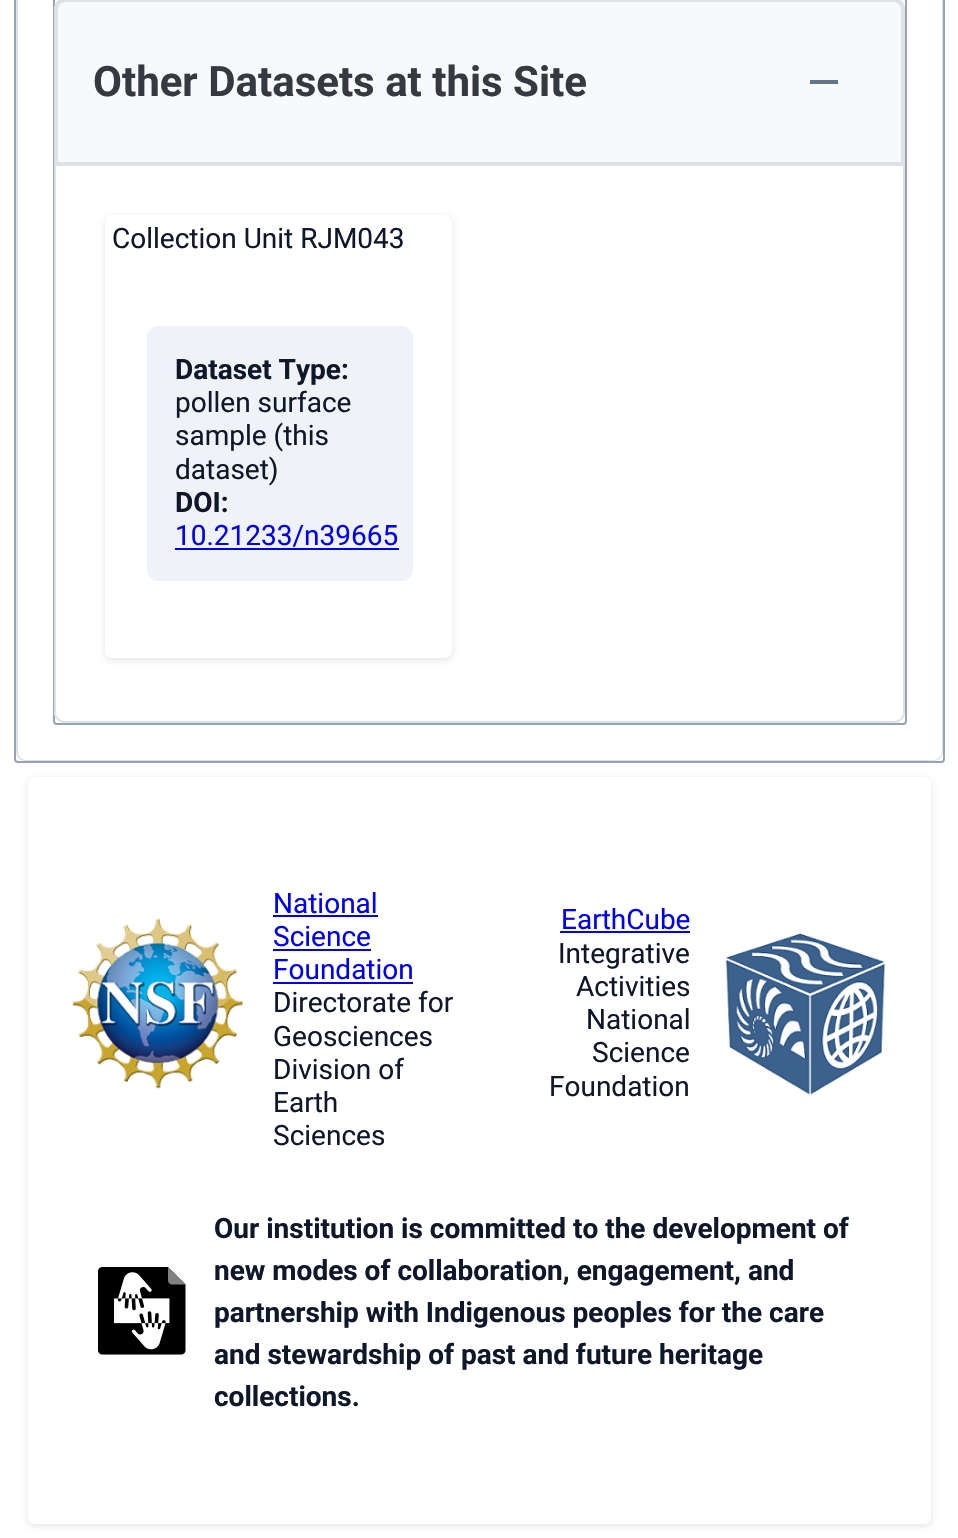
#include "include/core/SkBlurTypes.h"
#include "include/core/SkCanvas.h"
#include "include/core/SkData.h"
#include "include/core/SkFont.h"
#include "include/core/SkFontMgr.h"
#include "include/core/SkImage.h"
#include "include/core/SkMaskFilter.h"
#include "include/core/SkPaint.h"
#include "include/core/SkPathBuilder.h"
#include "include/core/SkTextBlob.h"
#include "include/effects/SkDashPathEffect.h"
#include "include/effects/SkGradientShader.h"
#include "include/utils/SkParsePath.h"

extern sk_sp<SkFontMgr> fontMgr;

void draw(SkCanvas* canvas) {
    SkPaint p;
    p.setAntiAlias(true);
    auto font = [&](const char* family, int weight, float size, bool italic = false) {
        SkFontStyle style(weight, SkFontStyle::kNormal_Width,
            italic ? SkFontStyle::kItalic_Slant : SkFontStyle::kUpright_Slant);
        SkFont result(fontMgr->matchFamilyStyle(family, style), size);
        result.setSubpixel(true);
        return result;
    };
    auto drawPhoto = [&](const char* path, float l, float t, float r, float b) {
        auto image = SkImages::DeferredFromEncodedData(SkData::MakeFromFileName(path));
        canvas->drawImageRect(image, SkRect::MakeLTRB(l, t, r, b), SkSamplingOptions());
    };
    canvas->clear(0xFFFFFFFF);
    p.setStyle(SkPaint::kStroke_Style);
    p.setStrokeWidth(2);
    p.setColor(0xFF94A3B8);
    canvas->drawRoundRect(SkRect::MakeLTRB(15, -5, 944, 762), 3, 3, p);
    p.setStyle(SkPaint::kFill_Style);
    p.setColor(0xFFDEE2E6);
    canvas->drawPath(SkPathBuilder(SkPathFillType::kEvenOdd).moveTo(16, -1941).lineTo(943, -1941).lineTo(943, 751).cubicTo(943, 757, 939, 761, 933, 761).lineTo(26, 761).cubicTo(20, 761, 16, 757, 16, 751).close().moveTo(18, -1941).lineTo(942, -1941).lineTo(942, 751).cubicTo(942, 756, 938, 760, 933, 760).lineTo(26, 760).cubicTo(21, 760, 18, 756, 18, 751).close().detach(), p);
    p.setStyle(SkPaint::kStroke_Style);
    p.setColor(0xFF94A3B8);
    canvas->drawRoundRect(SkRect::MakeLTRB(54, -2, 906, 724), 3, 3, p);
    p.setStyle(SkPaint::kFill_Style);
    p.setColor(0xFFF8F9FA);
    canvas->drawPath(SkPathBuilder().moveTo(65, 0).lineTo(894, 0).cubicTo(899, 0, 903, 4, 903, 9).lineTo(903, 164).lineTo(56, 164).lineTo(56, 9).cubicTo(56, 4, 60, 0, 65, 0).close().detach(), p);
    p.setStyle(SkPaint::kStroke_Style);
    p.setStrokeWidth(4);
    p.setColor(0xFFDEE2E6);
    canvas->drawPath(SkPathBuilder().moveTo(65, 0).lineTo(894, 0).cubicTo(899, 0, 903, 4, 903, 9).lineTo(903, 164).lineTo(56, 164).lineTo(56, 9).cubicTo(56, 4, 60, 0, 65, 0).close().detach(), p);
    auto font1 = font("Roboto", 700, 42);
    p.setStyle(SkPaint::kFill_Style);
    p.setColor(0xFF343A40);
    canvas->drawString("Other Datasets at this Site", 93, 96, font1, p);
    p.setColor(0xFF64748B);
    canvas->drawRect(SkRect::MakeLTRB(810, 80, 838, 84), p);
    p.setColor(0xFFFFFFFF);
    canvas->drawPath(SkPathBuilder().moveTo(54, 166).lineTo(905, 166).lineTo(905, 712).cubicTo(905, 718, 900, 723, 894, 723).lineTo(65, 723).cubicTo(59, 723, 54, 718, 54, 712).close().detach(), p);
    p.setColor(0xFFDEE2E6);
    canvas->drawPath(SkPathBuilder(SkPathFillType::kEvenOdd).moveTo(54, 166).lineTo(905, 166).lineTo(905, 712).cubicTo(905, 718, 900, 723, 894, 723).lineTo(65, 723).cubicTo(59, 723, 54, 718, 54, 712).close().moveTo(56, 166).lineTo(903, 166).lineTo(903, 712).cubicTo(903, 717, 899, 721, 894, 721).lineTo(65, 721).cubicTo(60, 721, 56, 717, 56, 712).close().detach(), p);
    p.setColor(0x1A000000);
    p.setMaskFilter(SkMaskFilter::MakeBlur(kNormal_SkBlurStyle, 3.5f));
    canvas->drawRoundRect(SkRect::MakeLTRB(105, 217, 452, 660), 7, 7, p);
    p.setMaskFilter(nullptr);
    p.setColor(0xFFFFFFFF);
    canvas->drawRoundRect(SkRect::MakeLTRB(105, 215, 452, 658), 7, 7, p);
    auto font2 = font("Roboto", 400, 28);
    p.setColor(0xFF0F172A);
    canvas->drawString("Collection Unit RJM043", 112, 248, font2, p);
    p.setColor(0xFFEFF3F8);
    canvas->drawRoundRect(SkRect::MakeLTRB(147, 326, 413, 581), 11, 11, p);
    auto font3 = font("Roboto", 700, 28);
    p.setColor(0xFF0F172A);
    canvas->drawString("Dataset Type:", 175, 379, font3, p);
    {
        const struct { const char* s; float x, y; } items[] = {
            {"pollen surface", 175, 412},
            {"sample (this", 175, 445},
            {"dataset)", 175, 479},
        };
        for (auto [s, x, y] : items) {
            canvas->drawString(s, x, y, font2, p);
        }
    }
    canvas->drawString("DOI:", 175, 512, font3, p);
    p.setColor(0xFF0000EE);
    canvas->drawString("10.21233/n39665", 175, 545, font2, p);
    canvas->drawRect(SkRect::MakeLTRB(175, 548, 399, 550), p);
    p.setColor(0x1A000000);
    p.setMaskFilter(SkMaskFilter::MakeBlur(kNormal_SkBlurStyle, 3.5f));
    canvas->drawRoundRect(SkRect::MakeLTRB(28, 779, 931, 1526), 7, 7, p);
    p.setMaskFilter(nullptr);
    p.setColor(0xFFFFFFFF);
    canvas->drawRoundRect(SkRect::MakeLTRB(28, 777, 931, 1524), 7, 7, p);
    drawPhoto("media/1.png", 72, 918, 243, 1089);
    p.setColor(0xFF0000EE);
    canvas->drawString("National", 273, 913, font2, p);
    canvas->drawRect(SkRect::MakeLTRB(273, 915, 378, 917), p);
    canvas->drawString("Science", 273, 946, font2, p);
    canvas->drawRect(SkRect::MakeLTRB(273, 949, 371, 951), p);
    canvas->drawString("Foundation", 273, 979, font2, p);
    canvas->drawRect(SkRect::MakeLTRB(273, 982, 413, 984), p);
    p.setColor(0xFF0F172A);
    {
        const struct { const char* s; float x, y; } items[] = {
            {"Directorate for", 273, 1012},
            {"Geosciences", 273, 1046},
            {"Division of", 273, 1079},
            {"Earth", 273, 1112},
            {"Sciences", 273, 1145},
        };
        for (auto [s, x, y] : items) {
            canvas->drawString(s, x, y, font2, p);
        }
    }
    p.setColor(0xFF0000EE);
    canvas->drawString("EarthCube", 561, 929, font2, p);
    canvas->drawRect(SkRect::MakeLTRB(560, 931, 690, 933), p);
    p.setColor(0xFF0F172A);
    {
        const struct { const char* s; float x, y; } items[] = {
            {"Integrative", 558, 963},
            {"Activities", 576, 996},
            {"National", 586, 1029},
            {"Science", 592, 1062},
            {"Foundation", 549, 1096},
        };
        for (auto [s, x, y] : items) {
            canvas->drawString(s, x, y, font2, p);
        }
    }
    drawPhoto("media/2.png", 725, 933, 886, 1095);
    drawPhoto("media/3.png", 98, 1267, 186, 1355);
    {
        const struct { const char* s; float x, y; } items[] = {
            {"Our institution is committed to the development of", 214, 1238},
            {"new modes of collaboration, engagement, and", 214, 1280},
            {"partnership with Indigenous peoples for the care", 214, 1322},
            {"and stewardship of past and future heritage", 214, 1364},
            {"collections.", 214, 1406},
        };
        for (auto [s, x, y] : items) {
            canvas->drawString(s, x, y, font3, p);
        }
    }
}
